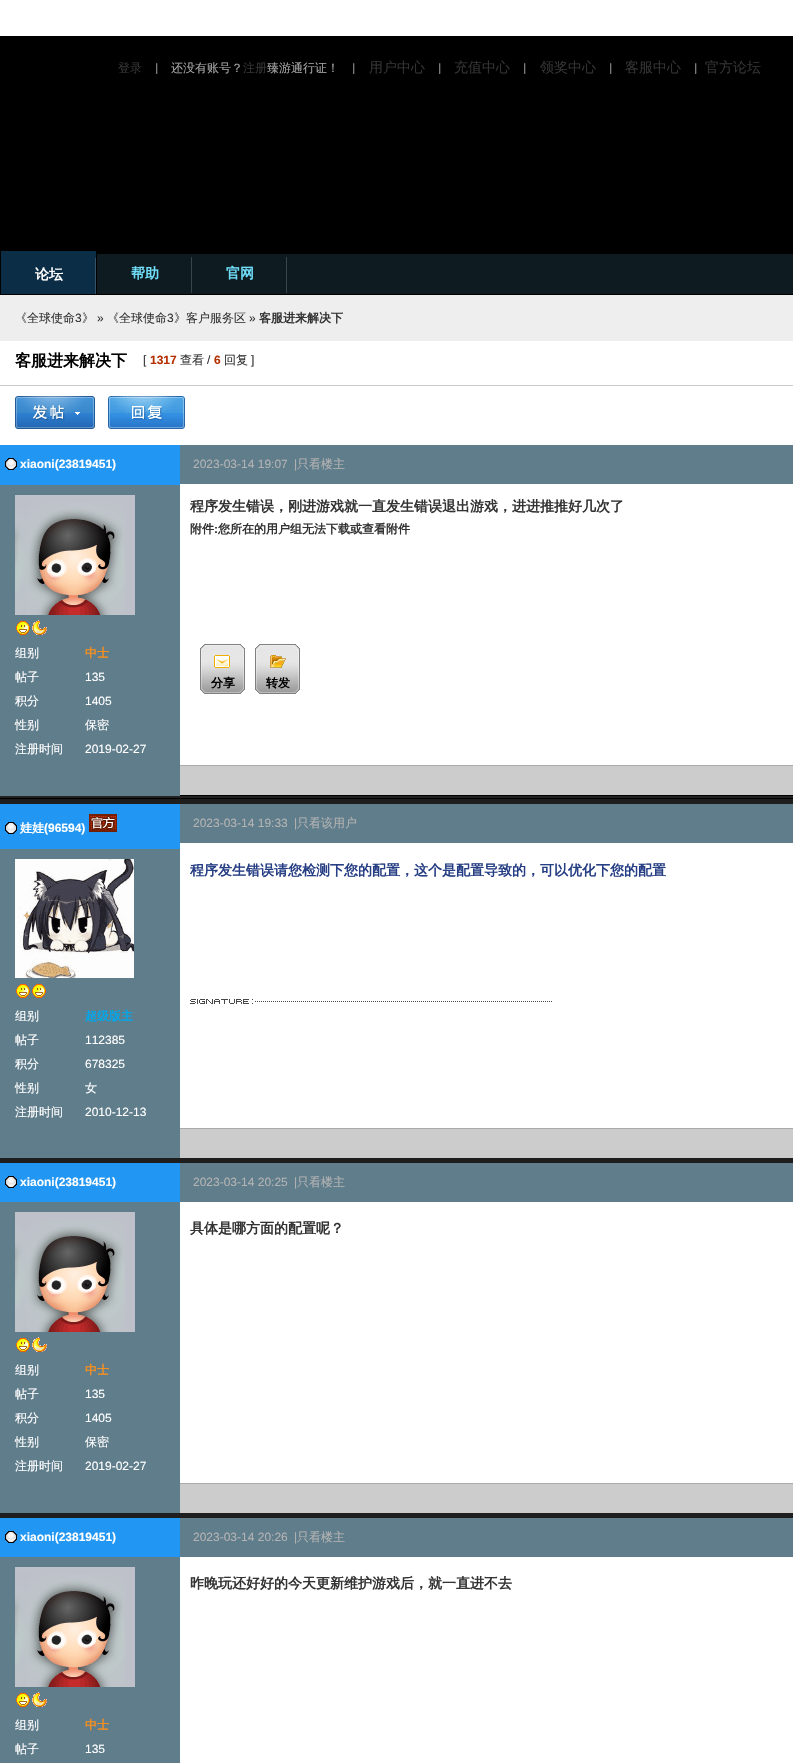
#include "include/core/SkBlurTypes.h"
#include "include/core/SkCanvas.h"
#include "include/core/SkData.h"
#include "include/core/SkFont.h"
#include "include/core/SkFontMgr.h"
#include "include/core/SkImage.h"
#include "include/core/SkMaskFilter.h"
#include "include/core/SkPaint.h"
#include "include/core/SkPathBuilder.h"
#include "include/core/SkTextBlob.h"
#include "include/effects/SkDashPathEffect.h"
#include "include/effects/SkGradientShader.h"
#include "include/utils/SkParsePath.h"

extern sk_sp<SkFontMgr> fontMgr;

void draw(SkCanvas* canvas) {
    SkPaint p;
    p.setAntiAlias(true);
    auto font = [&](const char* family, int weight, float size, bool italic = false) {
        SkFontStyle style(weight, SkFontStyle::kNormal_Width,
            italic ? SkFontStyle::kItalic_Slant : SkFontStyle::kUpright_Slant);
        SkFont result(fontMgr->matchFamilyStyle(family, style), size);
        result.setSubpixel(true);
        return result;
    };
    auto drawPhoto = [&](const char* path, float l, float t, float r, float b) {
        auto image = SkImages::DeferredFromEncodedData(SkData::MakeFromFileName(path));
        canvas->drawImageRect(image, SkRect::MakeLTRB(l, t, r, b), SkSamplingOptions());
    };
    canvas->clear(0xFF000000);
    p.setColor(0xFFFFFFFF);
    canvas->drawRect(SkRect::MakeLTRB(0, 0, 793, 36), p);
    auto font1 = font("WenQuanYi Zen Hei", 500, 12);
    p.setColor(0xFF333333);
    canvas->drawString("登录", 118, 72, font1, p);
    auto font2 = font("Carlito", 400, 12);
    p.setColor(0xFFA8A8A8);
    canvas->drawString("|", 154, 72, font2, p);
    canvas->drawString("还没有账号？", 171, 72, font1, p);
    p.setColor(0xFF333333);
    canvas->drawString("注册", 243, 72, font1, p);
    p.setColor(0xFFA8A8A8);
    canvas->drawString("臻游通行证！", 267, 72, font1, p);
    canvas->drawString("|", 351, 72, font2, p);
    auto font3 = font("WenQuanYi Zen Hei", 500, 14);
    p.setColor(0xFF333333);
    canvas->drawString("用户中心", 369, 72, font3, p);
    p.setColor(0xFFA8A8A8);
    canvas->drawString("|", 437, 72, font2, p);
    p.setColor(0xFF333333);
    canvas->drawString("充值中心", 454, 72, font3, p);
    p.setColor(0xFFA8A8A8);
    canvas->drawString("|", 522, 72, font2, p);
    p.setColor(0xFF333333);
    canvas->drawString("领奖中心", 540, 72, font3, p);
    p.setColor(0xFFA8A8A8);
    canvas->drawString("|", 608, 72, font2, p);
    p.setColor(0xFF333333);
    canvas->drawString("客服中心", 625, 72, font3, p);
    p.setColor(0xFFA8A8A8);
    canvas->drawString("|", 693, 72, font2, p);
    p.setColor(0xFF333333);
    canvas->drawString("官方论坛", 705, 72, font3, p);
    p.setColor(0xFF0E1C22);
    canvas->drawRect(SkRect::MakeLTRB(97, 254, 793, 294), p);
    p.setColor(0xFF0B2D46);
    canvas->drawRect(SkRect::MakeLTRB(1, 251, 96, 294), p);
    drawPhoto("media/1.png", 95, 258, 96, 294);
    auto font4 = font("WenQuanYi Zen Hei", 700, 14);
    p.setColor(0xFFFFFFFF);
    canvas->drawString("论坛", 35, 279, font4, p);
    drawPhoto("media/2.png", 191, 257, 192, 293);
    p.setColor(0xFF70DEF9);
    canvas->drawString("帮助", 131, 278, font4, p);
    drawPhoto("media/2.png", 286, 257, 287, 293);
    canvas->drawString("官网", 226, 278, font4, p);
    p.setColor(0xFFEEEEEE);
    canvas->drawRect(SkRect::MakeLTRB(0, 295, 793, 341), p);
    p.setColor(0xFF333333);
    canvas->drawString("《全球使命", 15, 322, font1, p);
    auto font5 = font("Liberation Sans", 400, 12);
    canvas->drawString("3", 75, 322, font5, p);
    canvas->drawString("》", 82, 322, font1, p);
    canvas->drawString("»", 97, 322, font5, p);
    canvas->drawString("《全球使命", 107, 322, font1, p);
    canvas->drawString("3", 167, 322, font5, p);
    canvas->drawString("》客户服务区", 174, 322, font1, p);
    canvas->drawString("»", 249, 322, font5, p);
    auto font6 = font("WenQuanYi Zen Hei", 700, 12);
    canvas->drawString("客服进来解决下", 259, 322, font6, p);
    p.setColor(0xFFFFFFFF);
    canvas->drawRect(SkRect::MakeLTRB(0, 341, 793, 1763), p);
    p.setColor(0xFFCCCCCC);
    canvas->drawRect(SkRect::MakeLTRB(0, 385, 793, 386), p);
    auto font7 = font("WenQuanYi Zen Hei", 700, 16);
    p.setColor(0xFF000000);
    canvas->drawString("客服进来解决下", 15, 366, font7, p);
    p.setColor(0xFF333333);
    canvas->drawString("[", 143, 364, font5, p);
    auto font8 = font("Liberation Sans", 700, 12);
    p.setColor(0xFFB62F00);
    canvas->drawString("1317", 150, 364, font8, p);
    p.setColor(0xFF333333);
    canvas->drawString("查看", 180, 364, font1, p);
    canvas->drawString("/", 207, 364, font5, p);
    p.setColor(0xFFB62F00);
    canvas->drawString("6", 214, 364, font8, p);
    p.setColor(0xFF333333);
    canvas->drawString("回复", 224, 364, font1, p);
    canvas->drawString("]", 251, 364, font5, p);
    drawPhoto("media/3.png", 15, 396, 95, 429);
    drawPhoto("media/4.png", 108, 396, 185, 429);
    p.setColor(0xFF607D8B);
    canvas->drawRect(SkRect::MakeLTRB(0, 485, 180, 796), p);
    p.setColor(0xFF2196F3);
    canvas->drawRect(SkRect::MakeLTRB(0, 445, 180, 485), p);
    drawPhoto("media/5.png", 5, 458, 17, 470);
    p.setColor(0xFFFFFFFF);
    canvas->drawString("xiaoni(23819451)", 20, 468, font8, p);
    drawPhoto("media/6.png", 15, 495, 135, 615);
    drawPhoto("media/7.png", 16, 621, 30, 635);
    drawPhoto("media/8.png", 32, 620, 47, 635);
    canvas->drawString("组别", 15, 657, font1, p);
    p.setColor(0xFFFB8F1B);
    canvas->drawString("中士", 85, 657, font6, p);
    p.setColor(0xFFFFFFFF);
    canvas->drawString("帖子", 15, 681, font1, p);
    canvas->drawString("135", 85, 681, font5, p);
    canvas->drawString("积分", 15, 705, font1, p);
    canvas->drawString("1405", 85, 705, font5, p);
    {
        const struct { const char* s; float x, y; } items[] = {
            {"性别", 15, 729},
            {"保密", 85, 729},
            {"注册时间", 15, 753},
        };
        for (auto [s, x, y] : items) {
            canvas->drawString(s, x, y, font1, p);
        }
    }
    canvas->drawString("2019-02-27", 85, 753, font5, p);
    p.setColor(0xFF607D8B);
    canvas->drawRect(SkRect::MakeLTRB(180, 445, 793, 484), p);
    p.setColor(0xFFB3B3B3);
    canvas->drawString("2023-03-14 19:07", 193, 468, font5, p);
    canvas->drawString("|", 294, 468, font5, p);
    canvas->drawString("只看楼主", 297, 468, font1, p);
    p.setColor(0xFF333333);
    canvas->drawString("程序发生错误，刚进游戏就一直发生错误退出游戏，进进推推好几次了", 190, 511, font4, p);
    canvas->drawString("附件", 190, 533, font6, p);
    canvas->drawString(":", 214, 533, font8, p);
    canvas->drawString("您所在的用户组无法下载或查看附件", 218, 533, font6, p);
    drawPhoto("media/9.png", 200, 644, 245, 694);
    p.setColor(0xFF000000);
    canvas->drawString("分享", 211, 687, font6, p);
    drawPhoto("media/10.png", 255, 644, 300, 694);
    canvas->drawString("转发", 266, 687, font6, p);
    {
        const struct { float l, t, r, b; SkColor color; } items[] = {
            {180, 766, 793, 795, 0xFFCCCCCC},
            {180, 765, 793, 766, 0xFFAAAAAA},
            {0, 796, 793, 798, 0xFF222222},
            {180, 795, 793, 796, 0xFF000000},
            {0, 798, 793, 799, 0xFF000000},
            {0, 799, 793, 804, 0xFF1E1E1E},
            {0, 849, 180, 1158, 0xFF607D8B},
            {0, 804, 180, 849, 0xFF2196F3},
        };
        for (auto [l, t, r, b, color] : items) {
            p.setColor(color);
            canvas->drawRect(SkRect::MakeLTRB(l, t, r, b), p);
        }
    }
    drawPhoto("media/5.png", 5, 822, 17, 834);
    p.setColor(0xFFFFFFFF);
    canvas->drawString("娃娃", 20, 832, font6, p);
    canvas->drawString("(96594)", 44, 832, font8, p);
    drawPhoto("media/11.png", 89, 814, 117, 832);
    drawPhoto("media/12.png", 15, 859, 134, 978);
    drawPhoto("media/7.png", 16, 984, 30, 998);
    drawPhoto("media/7.png", 32, 984, 46, 998);
    canvas->drawString("组别", 15, 1020, font1, p);
    p.setColor(0xFF00A8EC);
    canvas->drawString("超级版主", 85, 1020, font6, p);
    p.setColor(0xFFFFFFFF);
    canvas->drawString("帖子", 15, 1044, font1, p);
    canvas->drawString("112385", 85, 1044, font5, p);
    canvas->drawString("积分", 15, 1068, font1, p);
    canvas->drawString("678325", 85, 1068, font5, p);
    {
        const struct { const char* s; float x, y; } items[] = {
            {"性别", 15, 1092},
            {"女", 85, 1092},
            {"注册时间", 15, 1116},
        };
        for (auto [s, x, y] : items) {
            canvas->drawString(s, x, y, font1, p);
        }
    }
    canvas->drawString("2010-12-13", 85, 1116, font5, p);
    p.setColor(0xFF607D8B);
    canvas->drawRect(SkRect::MakeLTRB(180, 804, 793, 843), p);
    p.setColor(0xFFB3B3B3);
    canvas->drawString("2023-03-14 19:33", 193, 827, font5, p);
    canvas->drawString("|", 294, 827, font5, p);
    canvas->drawString("只看该用户", 297, 827, font1, p);
    p.setColor(0xFF263E84);
    canvas->drawString("程序发生错误请您检测下您的配置，这个是配置导致的，可以优化下您的配置", 190, 875, font4, p);
    drawPhoto("media/13.png", 190, 999, 552, 1004);
    {
        const struct { float l, t, r, b; SkColor color; } items[] = {
            {180, 1129, 793, 1158, 0xFFCCCCCC},
            {180, 1128, 793, 1129, 0xFFAAAAAA},
            {0, 1158, 793, 1163, 0xFF1E1E1E},
            {0, 1202, 180, 1513, 0xFF607D8B},
            {0, 1163, 180, 1202, 0xFF2196F3},
        };
        for (auto [l, t, r, b, color] : items) {
            p.setColor(color);
            canvas->drawRect(SkRect::MakeLTRB(l, t, r, b), p);
        }
    }
    drawPhoto("media/5.png", 5, 1176, 17, 1188);
    p.setColor(0xFFFFFFFF);
    canvas->drawString("xiaoni(23819451)", 20, 1186, font8, p);
    drawPhoto("media/6.png", 15, 1212, 135, 1332);
    drawPhoto("media/7.png", 16, 1338, 30, 1352);
    drawPhoto("media/8.png", 32, 1337, 47, 1352);
    canvas->drawString("组别", 15, 1374, font1, p);
    p.setColor(0xFFFB8F1B);
    canvas->drawString("中士", 85, 1374, font6, p);
    p.setColor(0xFFFFFFFF);
    canvas->drawString("帖子", 15, 1398, font1, p);
    canvas->drawString("135", 85, 1398, font5, p);
    canvas->drawString("积分", 15, 1422, font1, p);
    canvas->drawString("1405", 85, 1422, font5, p);
    {
        const struct { const char* s; float x, y; } items[] = {
            {"性别", 15, 1446},
            {"保密", 85, 1446},
            {"注册时间", 15, 1470},
        };
        for (auto [s, x, y] : items) {
            canvas->drawString(s, x, y, font1, p);
        }
    }
    canvas->drawString("2019-02-27", 85, 1470, font5, p);
    p.setColor(0xFF607D8B);
    canvas->drawRect(SkRect::MakeLTRB(180, 1163, 793, 1202), p);
    p.setColor(0xFFB3B3B3);
    canvas->drawString("2023-03-14 20:25", 193, 1186, font5, p);
    canvas->drawString("|", 294, 1186, font5, p);
    canvas->drawString("只看楼主", 297, 1186, font1, p);
    p.setColor(0xFF333333);
    canvas->drawString("具体是哪方面的配置呢？", 190, 1233, font4, p);
    {
        const struct { float l, t, r, b; SkColor color; } items[] = {
            {180, 1484, 793, 1513, 0xFFCCCCCC},
            {180, 1483, 793, 1484, 0xFFAAAAAA},
            {0, 1513, 793, 1518, 0xFF1E1E1E},
            {0, 1557, 180, 1763, 0xFF607D8B},
            {0, 1518, 180, 1557, 0xFF2196F3},
        };
        for (auto [l, t, r, b, color] : items) {
            p.setColor(color);
            canvas->drawRect(SkRect::MakeLTRB(l, t, r, b), p);
        }
    }
    drawPhoto("media/5.png", 5, 1531, 17, 1543);
    p.setColor(0xFFFFFFFF);
    canvas->drawString("xiaoni(23819451)", 20, 1541, font8, p);
    drawPhoto("media/6.png", 15, 1567, 135, 1687);
    drawPhoto("media/7.png", 16, 1693, 30, 1707);
    drawPhoto("media/8.png", 32, 1692, 47, 1707);
    canvas->drawString("组别", 15, 1729, font1, p);
    p.setColor(0xFFFB8F1B);
    canvas->drawString("中士", 85, 1729, font6, p);
    p.setColor(0xFFFFFFFF);
    canvas->drawString("帖子", 15, 1753, font1, p);
    canvas->drawString("135", 85, 1753, font5, p);
    p.setColor(0xFF607D8B);
    canvas->drawRect(SkRect::MakeLTRB(180, 1518, 793, 1557), p);
    p.setColor(0xFFB3B3B3);
    canvas->drawString("2023-03-14 20:26", 193, 1541, font5, p);
    canvas->drawString("|", 294, 1541, font5, p);
    canvas->drawString("只看楼主", 297, 1541, font1, p);
    p.setColor(0xFF333333);
    canvas->drawString("昨晚玩还好好的今天更新维护游戏后，就一直进不去", 190, 1588, font4, p);
}
